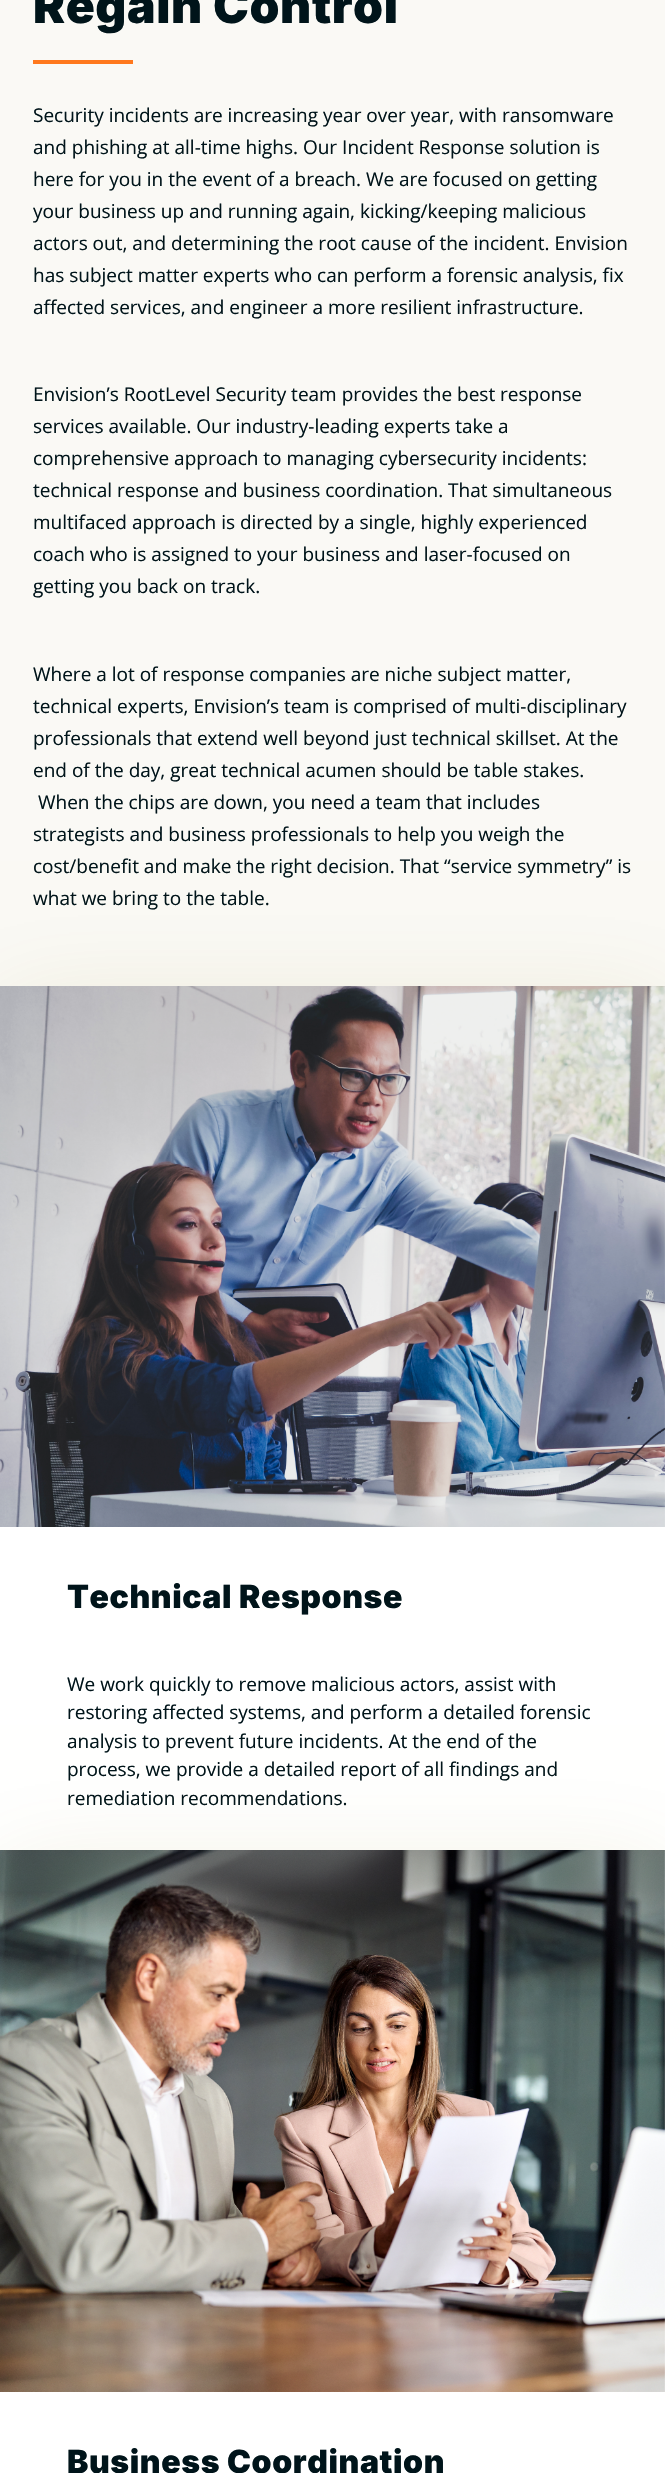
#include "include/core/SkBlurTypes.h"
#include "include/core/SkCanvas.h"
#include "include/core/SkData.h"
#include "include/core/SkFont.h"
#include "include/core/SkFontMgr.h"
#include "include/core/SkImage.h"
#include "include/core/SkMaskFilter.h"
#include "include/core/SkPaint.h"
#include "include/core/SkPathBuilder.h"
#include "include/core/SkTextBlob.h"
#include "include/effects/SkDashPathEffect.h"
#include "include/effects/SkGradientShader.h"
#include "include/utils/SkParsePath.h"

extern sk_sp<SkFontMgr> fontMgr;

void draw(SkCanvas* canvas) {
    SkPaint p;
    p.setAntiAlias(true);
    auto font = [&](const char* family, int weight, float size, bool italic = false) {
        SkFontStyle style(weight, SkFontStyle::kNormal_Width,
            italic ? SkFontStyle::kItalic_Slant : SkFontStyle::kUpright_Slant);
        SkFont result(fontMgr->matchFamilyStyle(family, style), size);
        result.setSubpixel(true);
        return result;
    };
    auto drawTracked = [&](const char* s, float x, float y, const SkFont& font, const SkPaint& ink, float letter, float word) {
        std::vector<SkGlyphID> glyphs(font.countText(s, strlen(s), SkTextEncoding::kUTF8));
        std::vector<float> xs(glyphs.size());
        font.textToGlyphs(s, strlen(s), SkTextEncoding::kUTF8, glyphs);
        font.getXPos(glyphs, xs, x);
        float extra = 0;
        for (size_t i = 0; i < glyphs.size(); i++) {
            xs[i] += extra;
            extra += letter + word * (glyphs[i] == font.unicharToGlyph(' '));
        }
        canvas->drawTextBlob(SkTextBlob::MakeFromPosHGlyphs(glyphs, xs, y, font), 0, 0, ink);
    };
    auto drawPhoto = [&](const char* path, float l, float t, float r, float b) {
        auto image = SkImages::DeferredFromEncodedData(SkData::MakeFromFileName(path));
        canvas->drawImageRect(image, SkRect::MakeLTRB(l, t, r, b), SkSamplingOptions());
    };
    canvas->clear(0xFFFAF9F5);
    auto font1 = font("Inter", 900, 48);
    p.setColor(0xFF00141A);
    drawTracked("Regain Control", 33, 23, font1, p, 0.6f, 0);
    p.setColor(0xFFFF781D);
    canvas->drawRect(SkRect::MakeLTRB(33, 60, 133, 64), p);
    auto font2 = font("Open Sans", 400, 19);
    p.setColor(0xFF00141A);
    {
        const struct { const char* s; float x, y; } items[] = {
            {"Security incidents are increasing year over year, with ransomware", 33, 122},
            {"and phishing at all-time highs. Our Incident Response solution is", 33, 154},
            {"here for you in the event of a breach. We are focused on getting", 33, 186},
            {"your business up and running again, kicking/keeping malicious", 33, 218},
            {"actors out, and determining the root cause of the incident. Envision", 33, 250},
            {"has subject matter experts who can perform a forensic analysis, fix", 33, 282},
            {"affected services, and engineer a more resilient infrastructure.", 33, 314},
            {"Envision’s RootLevel Security team provides the best response", 33, 401},
            {"services available. Our industry-leading experts take a", 33, 433},
            {"comprehensive approach to managing cybersecurity incidents:", 33, 465},
            {"technical response and business coordination. That simultaneous", 33, 497},
            {"multifaced approach is directed by a single, highly experienced", 33, 529},
            {"coach who is assigned to your business and laser-focused on", 33, 561},
            {"getting you back on track.", 33, 593},
            {"Where a lot of response companies are niche subject matter,", 33, 681},
            {"technical experts, Envision’s team is comprised of multi-disciplinary", 33, 713},
            {"professionals that extend well beyond just technical skillset. At the", 33, 745},
            {"end of the day, great technical acumen should be table stakes.", 33, 777},
            {"When the chips are down, you need a team that includes", 38, 809},
            {"strategists and business professionals to help you weigh the", 33, 841},
            {"cost/benefit and make the right decision. That “service symmetry” is", 33, 873},
            {"what we bring to the table.", 33, 905},
        };
        for (auto [s, x, y] : items) {
            canvas->drawString(s, x, y, font2, p);
        }
    }
    p.setColor(0x21867100);
    p.setMaskFilter(SkMaskFilter::MakeBlur(kNormal_SkBlurStyle, 50));
    canvas->drawRect(SkRect::MakeLTRB(0, 1010, 665, 1874), p);
    p.setMaskFilter(nullptr);
    p.setColor(0xFFFFFFFF);
    canvas->drawRect(SkRect::MakeLTRB(0, 986, 665, 1850), p);
    drawPhoto("media/1.png", 0, 986, 665, 1527);
    auto font3 = font("Inter", 900, 32);
    p.setColor(0xFF00141A);
    drawTracked("Technical Response", 67, 1608, font3, p, 0.6f, 0);
    {
        const struct { const char* s; float x, y; } items[] = {
            {"We work quickly to remove malicious actors, assist with", 67, 1691},
            {"restoring affected systems, and perform a detailed forensic", 67, 1719},
            {"analysis to prevent future incidents. At the end of the", 67, 1748},
            {"process, we provide a detailed report of all findings and", 67, 1776},
            {"remediation recommendations.", 67, 1805},
        };
        for (auto [s, x, y] : items) {
            canvas->drawString(s, x, y, font2, p);
        }
    }
    p.setColor(0x21867100);
    p.setMaskFilter(SkMaskFilter::MakeBlur(kNormal_SkBlurStyle, 50));
    canvas->drawRect(SkRect::MakeLTRB(0, 1874, 665, 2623), p);
    p.setMaskFilter(nullptr);
    p.setColor(0xFFFFFFFF);
    canvas->drawRect(SkRect::MakeLTRB(0, 1850, 665, 2473), p);
    drawPhoto("media/2.png", 0, 1850, 665, 2392);
    p.setColor(0xFF00141A);
    drawTracked("Business Coordination", 67, 2473, font3, p, 0.6f, 0);
}
